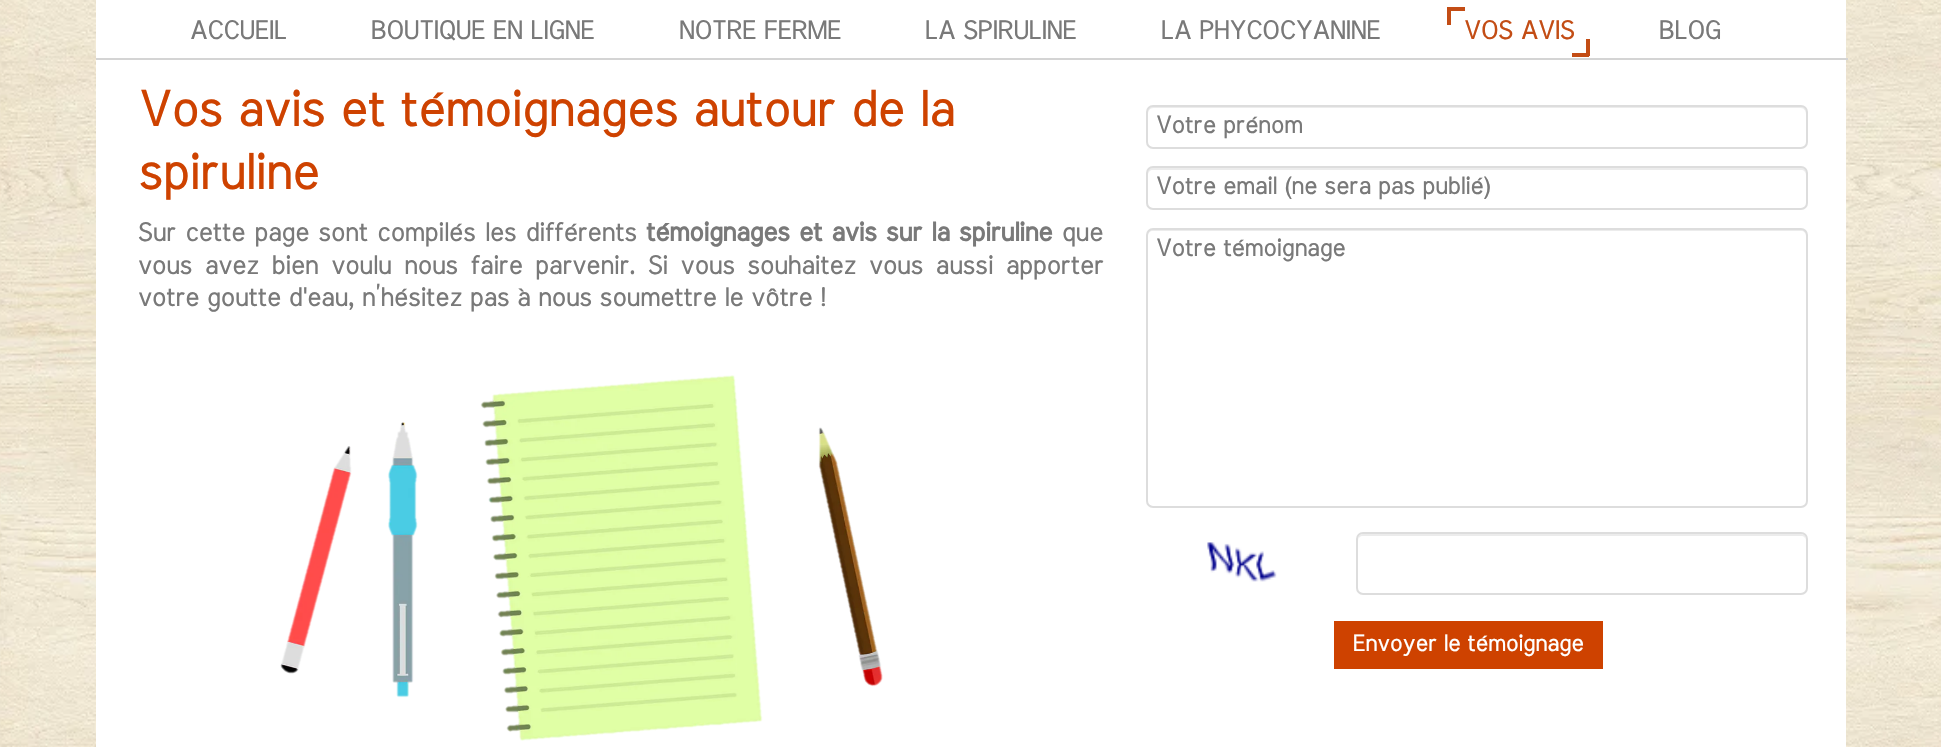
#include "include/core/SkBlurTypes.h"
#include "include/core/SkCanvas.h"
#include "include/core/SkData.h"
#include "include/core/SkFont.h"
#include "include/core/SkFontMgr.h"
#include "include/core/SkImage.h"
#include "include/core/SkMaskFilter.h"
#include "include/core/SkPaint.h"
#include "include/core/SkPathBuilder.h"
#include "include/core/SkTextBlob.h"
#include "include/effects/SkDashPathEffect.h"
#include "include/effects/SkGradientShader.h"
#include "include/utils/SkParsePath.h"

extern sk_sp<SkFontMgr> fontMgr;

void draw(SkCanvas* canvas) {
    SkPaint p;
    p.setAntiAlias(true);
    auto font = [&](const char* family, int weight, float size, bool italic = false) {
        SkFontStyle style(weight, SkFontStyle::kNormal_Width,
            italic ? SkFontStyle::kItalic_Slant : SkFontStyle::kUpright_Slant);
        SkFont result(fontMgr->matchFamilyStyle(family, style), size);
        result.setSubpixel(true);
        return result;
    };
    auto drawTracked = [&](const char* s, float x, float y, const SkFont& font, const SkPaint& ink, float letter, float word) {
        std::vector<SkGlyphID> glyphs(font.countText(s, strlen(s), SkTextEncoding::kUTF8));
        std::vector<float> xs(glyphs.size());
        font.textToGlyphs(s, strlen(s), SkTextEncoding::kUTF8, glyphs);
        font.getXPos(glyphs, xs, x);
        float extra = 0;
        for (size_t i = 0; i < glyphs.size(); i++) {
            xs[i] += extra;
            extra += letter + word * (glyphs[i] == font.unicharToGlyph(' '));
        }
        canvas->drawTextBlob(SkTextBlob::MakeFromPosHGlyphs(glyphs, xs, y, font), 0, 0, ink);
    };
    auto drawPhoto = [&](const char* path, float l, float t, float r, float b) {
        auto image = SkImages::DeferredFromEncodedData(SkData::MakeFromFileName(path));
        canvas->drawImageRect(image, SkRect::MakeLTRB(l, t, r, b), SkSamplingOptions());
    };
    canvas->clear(0xFFFFFFFF);
    drawPhoto("media/1.png", 0, 0, 1941, 747);
    p.setColor(0xFFFFFFFF);
    canvas->drawRect(SkRect::MakeLTRB(96, 0, 1846, 747), p);
    auto font1 = font("Meera Inimai", 400, 26.25f);
    p.setColor(0xFF797979);
    {
        const struct { const char* s; float x, y; } items[] = {
            {"ACCUEIL", 189, 39},
            {"BOUTIQUE EN LIGNE", 370, 39},
            {"NOTRE FERME", 678, 39},
            {"LA SPIRULINE", 924, 39},
            {"LA PHYCOCYANINE", 1160, 39},
        };
        for (auto [s, x, y] : items) {
            canvas->drawString(s, x, y, font1, p);
        }
    }
    p.setColor(0xFFC34D15);
    canvas->drawRect(SkRect::MakeLTRB(1447, 7, 1465, 11), p);
    canvas->drawRect(SkRect::MakeLTRB(1447, 7, 1451, 25), p);
    canvas->drawString("VOS AVIS", 1463, 39, font1, p);
    canvas->drawRect(SkRect::MakeLTRB(1586, 39, 1590, 56), p);
    canvas->drawRect(SkRect::MakeLTRB(1572, 53, 1589, 57), p);
    p.setColor(0xFF797979);
    canvas->drawString("BLOG", 1658, 39, font1, p);
    p.setColor(0xFFD4D4D4);
    canvas->drawRect(SkRect::MakeLTRB(96, 58, 1848, 60), p);
    auto font2 = font("Meera Inimai", 400, 50.75f);
    p.setColor(0xFFCE4200);
    canvas->drawString("Vos avis et témoignages autour de la", 137, 126, font2, p);
    canvas->drawString("spiruline", 137, 189, font2, p);
    p.setColor(0xFF797979);
    drawTracked("Sur cette page sont compilés les différents", 137, 241, font1, p, 0, 1.5f);
    auto font3 = font("Meera Inimai", 700, 26.25f);
    drawTracked("témoignages et avis sur la spiruline", 645, 241, font3, p, 0, 1.5f);
    canvas->drawString("que", 1061, 241, font1, p);
    drawTracked("vous avez bien voulu nous faire parvenir. Si vous souhaitez vous aussi apporter", 137, 274, font1, p, 0, 4.9f);
    canvas->drawString("votre goutte d'eau, n’hésitez pas à nous soumettre le vôtre !", 137, 306, font1, p);
    p.setColor(0xFFECECEC);
    canvas->drawPath(SkPathBuilder().moveTo(1153, 108).lineTo(1801, 108).cubicTo(1804, 108, 1806, 111, 1806, 114).lineTo(1806, 112).cubicTo(1806, 109, 1804, 107, 1801, 107).lineTo(1153, 107).cubicTo(1150, 107, 1148, 109, 1148, 112).lineTo(1148, 114).cubicTo(1148, 111, 1150, 108, 1153, 108).close().detach(), p);
    p.setStyle(SkPaint::kStroke_Style);
    p.setStrokeWidth(2);
    p.setColor(0xFFDDDDDD);
    canvas->drawRoundRect(SkRect::MakeLTRB(1147, 106, 1807, 148), 6, 6, p);
    auto font4 = font("Meera Inimai", 400, 24.5f);
    p.setStyle(SkPaint::kFill_Style);
    p.setColor(0xFF797979);
    canvas->drawString("Votre prénom", 1155, 133, font4, p);
    p.setColor(0xFFECECEC);
    canvas->drawPath(SkPathBuilder().moveTo(1153, 170).lineTo(1801, 170).cubicTo(1804, 170, 1806, 172, 1806, 175).lineTo(1806, 173).cubicTo(1806, 170, 1804, 168, 1801, 168).lineTo(1153, 168).cubicTo(1150, 168, 1148, 170, 1148, 173).lineTo(1148, 175).cubicTo(1148, 172, 1150, 170, 1153, 170).close().detach(), p);
    p.setStyle(SkPaint::kStroke_Style);
    p.setColor(0xFFDDDDDD);
    canvas->drawRoundRect(SkRect::MakeLTRB(1147, 167, 1807, 209), 6, 6, p);
    p.setStyle(SkPaint::kFill_Style);
    p.setColor(0xFF797979);
    canvas->drawString("Votre email (ne sera pas publié)", 1155, 194, font4, p);
    p.setColor(0xFFECECEC);
    canvas->drawPath(SkPathBuilder().moveTo(1153, 231).lineTo(1801, 231).cubicTo(1804, 231, 1806, 233, 1806, 236).lineTo(1806, 234).cubicTo(1806, 231, 1804, 229, 1801, 229).lineTo(1153, 229).cubicTo(1150, 229, 1148, 231, 1148, 234).lineTo(1148, 236).cubicTo(1148, 233, 1150, 231, 1153, 231).close().detach(), p);
    p.setStyle(SkPaint::kStroke_Style);
    p.setColor(0xFFDDDDDD);
    canvas->drawRoundRect(SkRect::MakeLTRB(1147, 229, 1807, 507), 6, 6, p);
    p.setStyle(SkPaint::kFill_Style);
    p.setColor(0xFF797979);
    canvas->drawString("Votre témoignage", 1155, 256, font4, p);
    drawPhoto("media/2.png", 1207, 542, 1277, 582);
    p.setColor(0xFFECECEC);
    canvas->drawPath(SkPathBuilder().moveTo(1363, 536).lineTo(1801, 536).cubicTo(1804, 536, 1806, 538, 1806, 541).cubicTo(1806, 538, 1805, 534, 1801, 534).lineTo(1363, 534).cubicTo(1359, 534, 1358, 538, 1358, 541).cubicTo(1358, 538, 1360, 536, 1363, 536).close().detach(), p);
    p.setStyle(SkPaint::kStroke_Style);
    p.setColor(0xFFDDDDDD);
    canvas->drawRoundRect(SkRect::MakeLTRB(1357, 533, 1807, 594), 6, 6, p);
    p.setStyle(SkPaint::kFill_Style);
    p.setColor(0xFFCE4200);
    canvas->drawRect(SkRect::MakeLTRB(1334, 621, 1603, 669), p);
    auto font5 = font("Meera Inimai", 400, 23.25f);
    p.setColor(0xFFFFFFFF);
    canvas->drawString("Envoyer le témoignage", 1352, 651, font5, p);
    drawPhoto("media/3.png", 280, 375, 883, 741);
}
